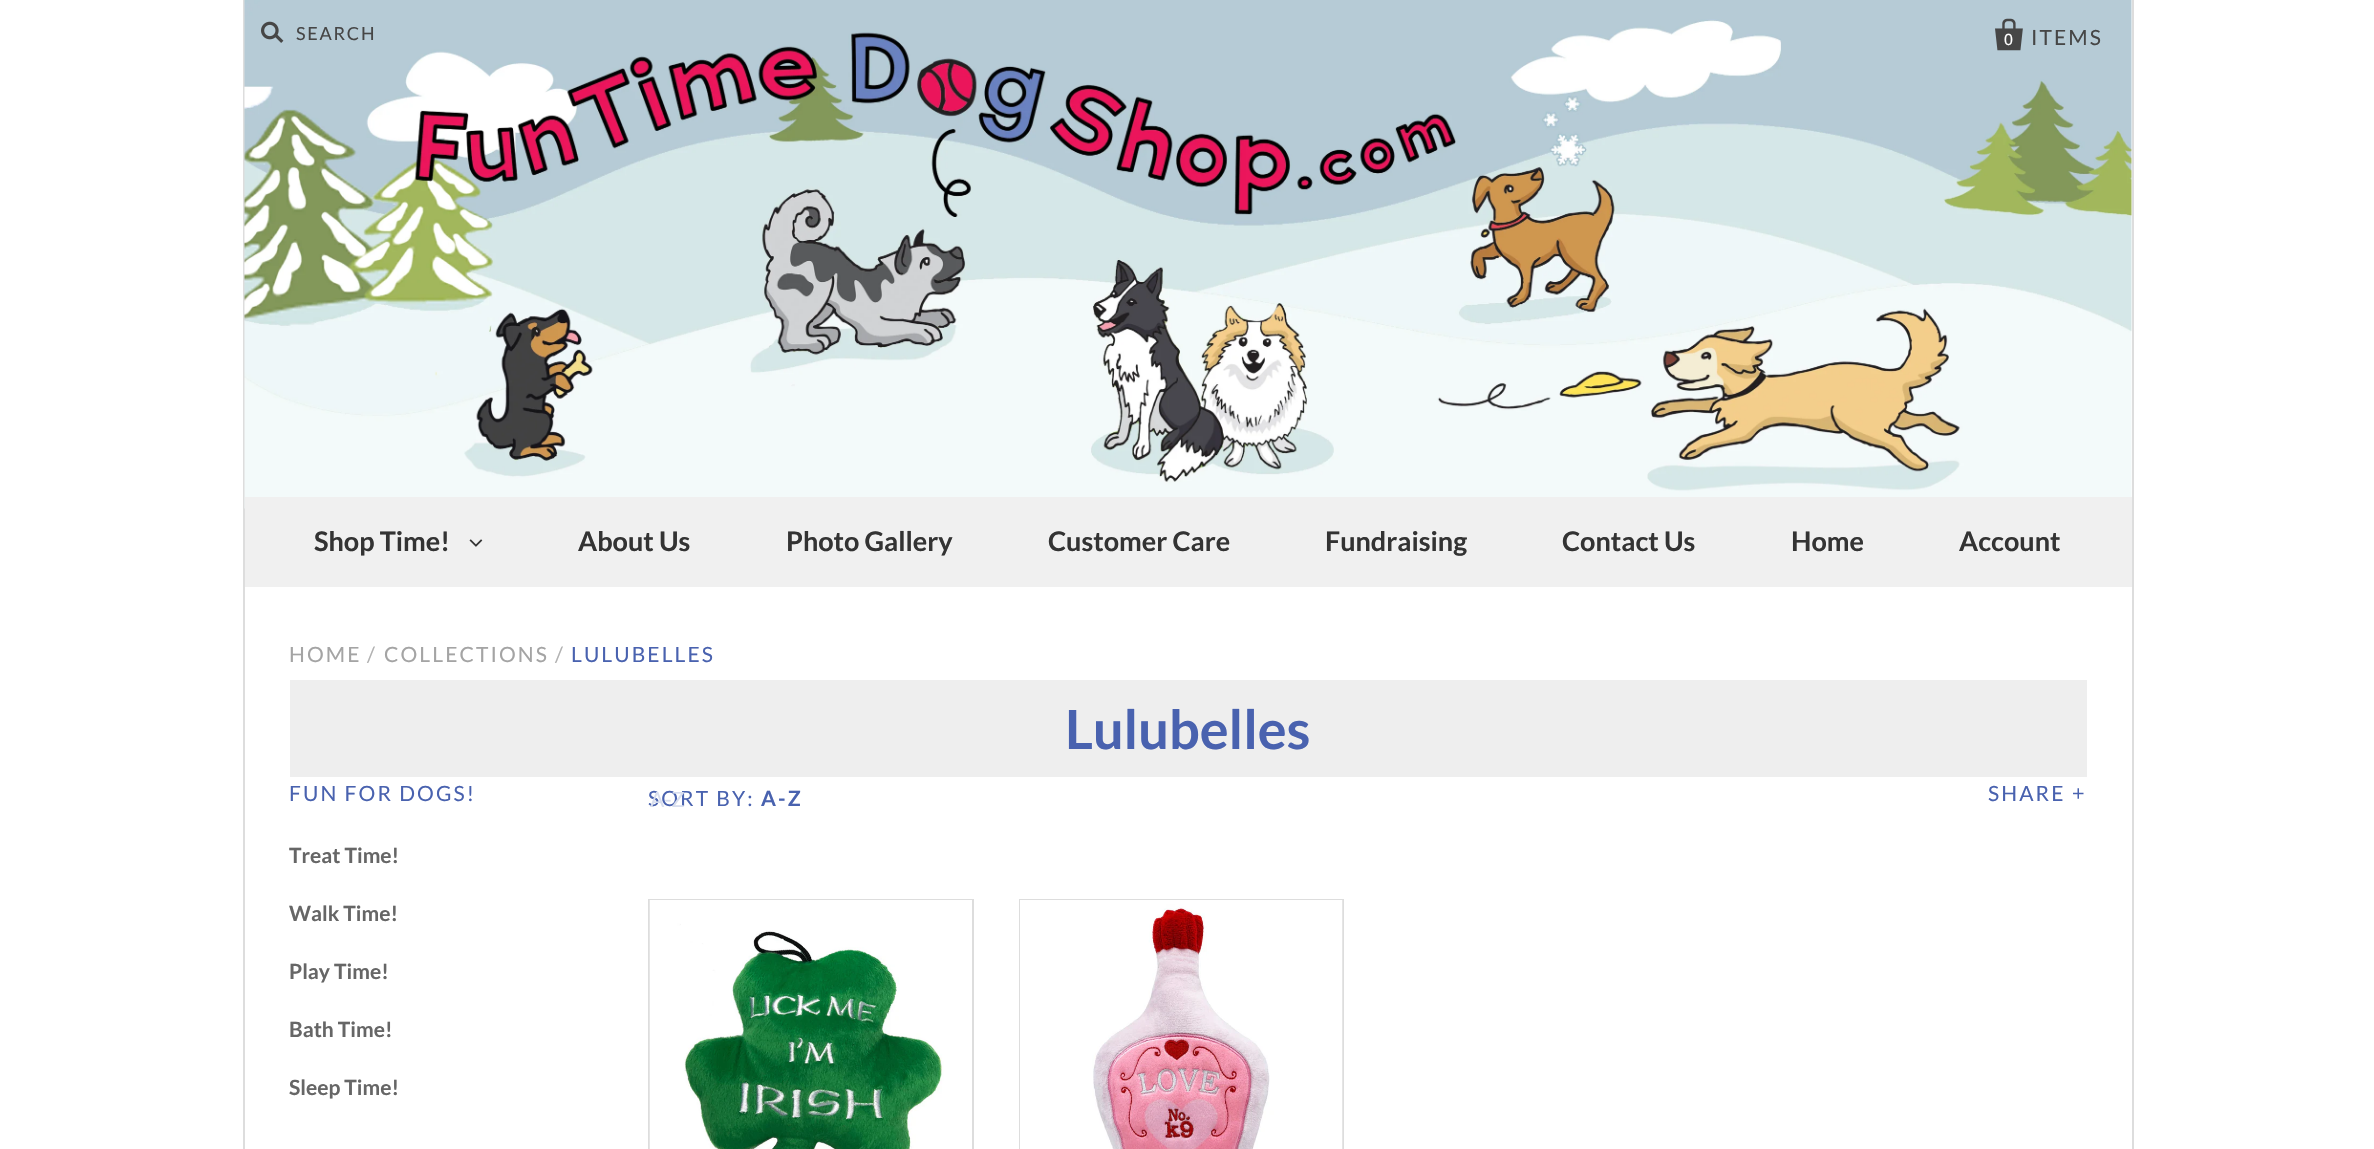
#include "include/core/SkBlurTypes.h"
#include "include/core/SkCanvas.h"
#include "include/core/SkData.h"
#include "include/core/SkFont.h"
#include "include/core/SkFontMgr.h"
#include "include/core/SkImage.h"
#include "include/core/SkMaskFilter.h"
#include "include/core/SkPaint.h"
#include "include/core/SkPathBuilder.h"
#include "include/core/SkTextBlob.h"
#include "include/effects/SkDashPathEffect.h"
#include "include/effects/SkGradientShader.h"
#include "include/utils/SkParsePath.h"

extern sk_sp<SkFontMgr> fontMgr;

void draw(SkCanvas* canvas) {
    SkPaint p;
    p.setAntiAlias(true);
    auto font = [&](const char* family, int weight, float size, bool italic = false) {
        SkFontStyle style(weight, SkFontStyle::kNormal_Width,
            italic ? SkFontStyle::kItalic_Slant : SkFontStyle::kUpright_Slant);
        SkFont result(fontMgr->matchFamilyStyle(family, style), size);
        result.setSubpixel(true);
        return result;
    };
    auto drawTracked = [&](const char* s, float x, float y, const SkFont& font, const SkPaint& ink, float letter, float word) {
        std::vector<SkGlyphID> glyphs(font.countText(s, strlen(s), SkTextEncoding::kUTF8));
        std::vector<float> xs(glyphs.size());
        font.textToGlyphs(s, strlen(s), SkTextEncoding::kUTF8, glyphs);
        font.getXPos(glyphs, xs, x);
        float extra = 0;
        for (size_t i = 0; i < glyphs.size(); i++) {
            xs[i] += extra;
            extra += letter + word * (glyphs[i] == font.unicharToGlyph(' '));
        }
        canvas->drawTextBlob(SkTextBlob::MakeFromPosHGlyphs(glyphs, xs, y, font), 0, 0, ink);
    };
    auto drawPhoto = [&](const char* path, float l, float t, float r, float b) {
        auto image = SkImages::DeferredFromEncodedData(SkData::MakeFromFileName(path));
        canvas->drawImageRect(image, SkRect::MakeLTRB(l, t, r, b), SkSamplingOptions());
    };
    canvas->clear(0xFFFFFFFF);
    p.setColor(0xFFDDDDDD);
    canvas->drawRect(SkRect::MakeLTRB(2132, 0, 2134, 1149), p);
    canvas->drawRect(SkRect::MakeLTRB(243, 0, 245, 1149), p);
    drawPhoto("media/1.png", 244, 0, 2132, 509);
    drawPhoto("media/2.png", 261, 21, 284, 43);
    auto font1 = font("Lato", 400, 18);
    p.setColor(0xFF464646);
    drawTracked("SEARCH", 296, 40, font1, p, 1.75f, 0);
    drawPhoto("media/3.png", 1995, 18, 2023, 51);
    auto font2 = font("Lato", 400, 21);
    drawTracked("ITEMS", 2031, 45, font2, p, 2.1f, 0);
    auto font3 = font("Liberation Sans", 400, 16);
    p.setColor(0xFFFFFFFF);
    drawTracked("0", 2004, 45, font3, p, 2.1f, 0);
    p.setColor(0xFFF0F0F0);
    canvas->drawRect(SkRect::MakeLTRB(245, 497, 2132, 587), p);
    auto font4 = font("Lato", 700, 27);
    p.setColor(0xFF333333);
    canvas->drawString("Shop Time!", 314, 551, font4, p);
    drawPhoto("media/4.png", 469, 539, 483, 547);
    {
        const struct { const char* s; float x, y; } items[] = {
            {"About Us", 578, 551},
            {"Photo Gallery", 786, 551},
            {"Customer Care", 1048, 551},
            {"Fundraising", 1325, 551},
            {"Contact Us", 1562, 551},
            {"Home", 1791, 551},
            {"Account", 1959, 551},
        };
        for (auto [s, x, y] : items) {
            canvas->drawString(s, x, y, font4, p);
        }
    }
    p.setColor(0xFFA4A4A4);
    drawTracked("HOME", 289, 662, font2, p, 2.1f, 0);
    p.setColor(0xFFB2B2B2);
    drawTracked("/", 367, 662, font2, p, 2.1f, 0);
    p.setColor(0xFFA4A4A4);
    drawTracked("COLLECTIONS", 384, 662, font2, p, 2.1f, 0);
    p.setColor(0xFFB2B2B2);
    drawTracked("/", 555, 662, font2, p, 2.1f, 0);
    p.setColor(0xFF4962AF);
    drawTracked("LULUBELLES", 571, 662, font2, p, 2.1f, 0);
    p.setColor(0xFFEEEEEE);
    canvas->drawRect(SkRect::MakeLTRB(290, 680, 2087, 777), p);
    auto font5 = font("Lato", 700, 54);
    p.setColor(0xFF4962AF);
    canvas->drawString("Lulubelles", 1065, 749, font5, p);
    drawTracked("FUN FOR DOGS!", 289, 801, font2, p, 2.1f, 0);
    auto font6 = font("Lato", 700, 21);
    p.setColor(0xFF666666);
    {
        const struct { const char* s; float x, y; } items[] = {
            {"Treat Time!", 289, 863},
            {"Walk Time!", 289, 921},
            {"Play Time!", 289, 979},
            {"Bath Time!", 289, 1037},
            {"Sleep Time!", 289, 1095},
        };
        for (auto [s, x, y] : items) {
            canvas->drawString(s, x, y, font6, p);
        }
    }
    p.setColor(0xFF4962AF);
    drawTracked("SORT BY:", 648, 806, font2, p, 2.1f, 0);
    drawTracked("A-Z", 761, 806, font6, p, 2.1f, 0);
    p.setColor(0xFFD8DEEE);
    canvas->drawString("A-Z", 650, 807, font2, p);
    p.setColor(0xFF4962AF);
    drawTracked("SHARE", 1988, 801, font2, p, 2.1f, 0);
    drawPhoto("media/5.png", 2073, 788, 2084, 799);
    p.setStyle(SkPaint::kStroke_Style);
    p.setStrokeWidth(2);
    p.setColor(0xFFDDDDDD);
    canvas->drawRect(SkRect::MakeLTRB(649, 900, 973, 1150), p);
    drawPhoto("media/6.png", 649, 900, 972, 1149);
    canvas->drawRect(SkRect::MakeLTRB(1020, 900, 1343, 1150), p);
    drawPhoto("media/7.png", 1020, 900, 1343, 1149);
}
